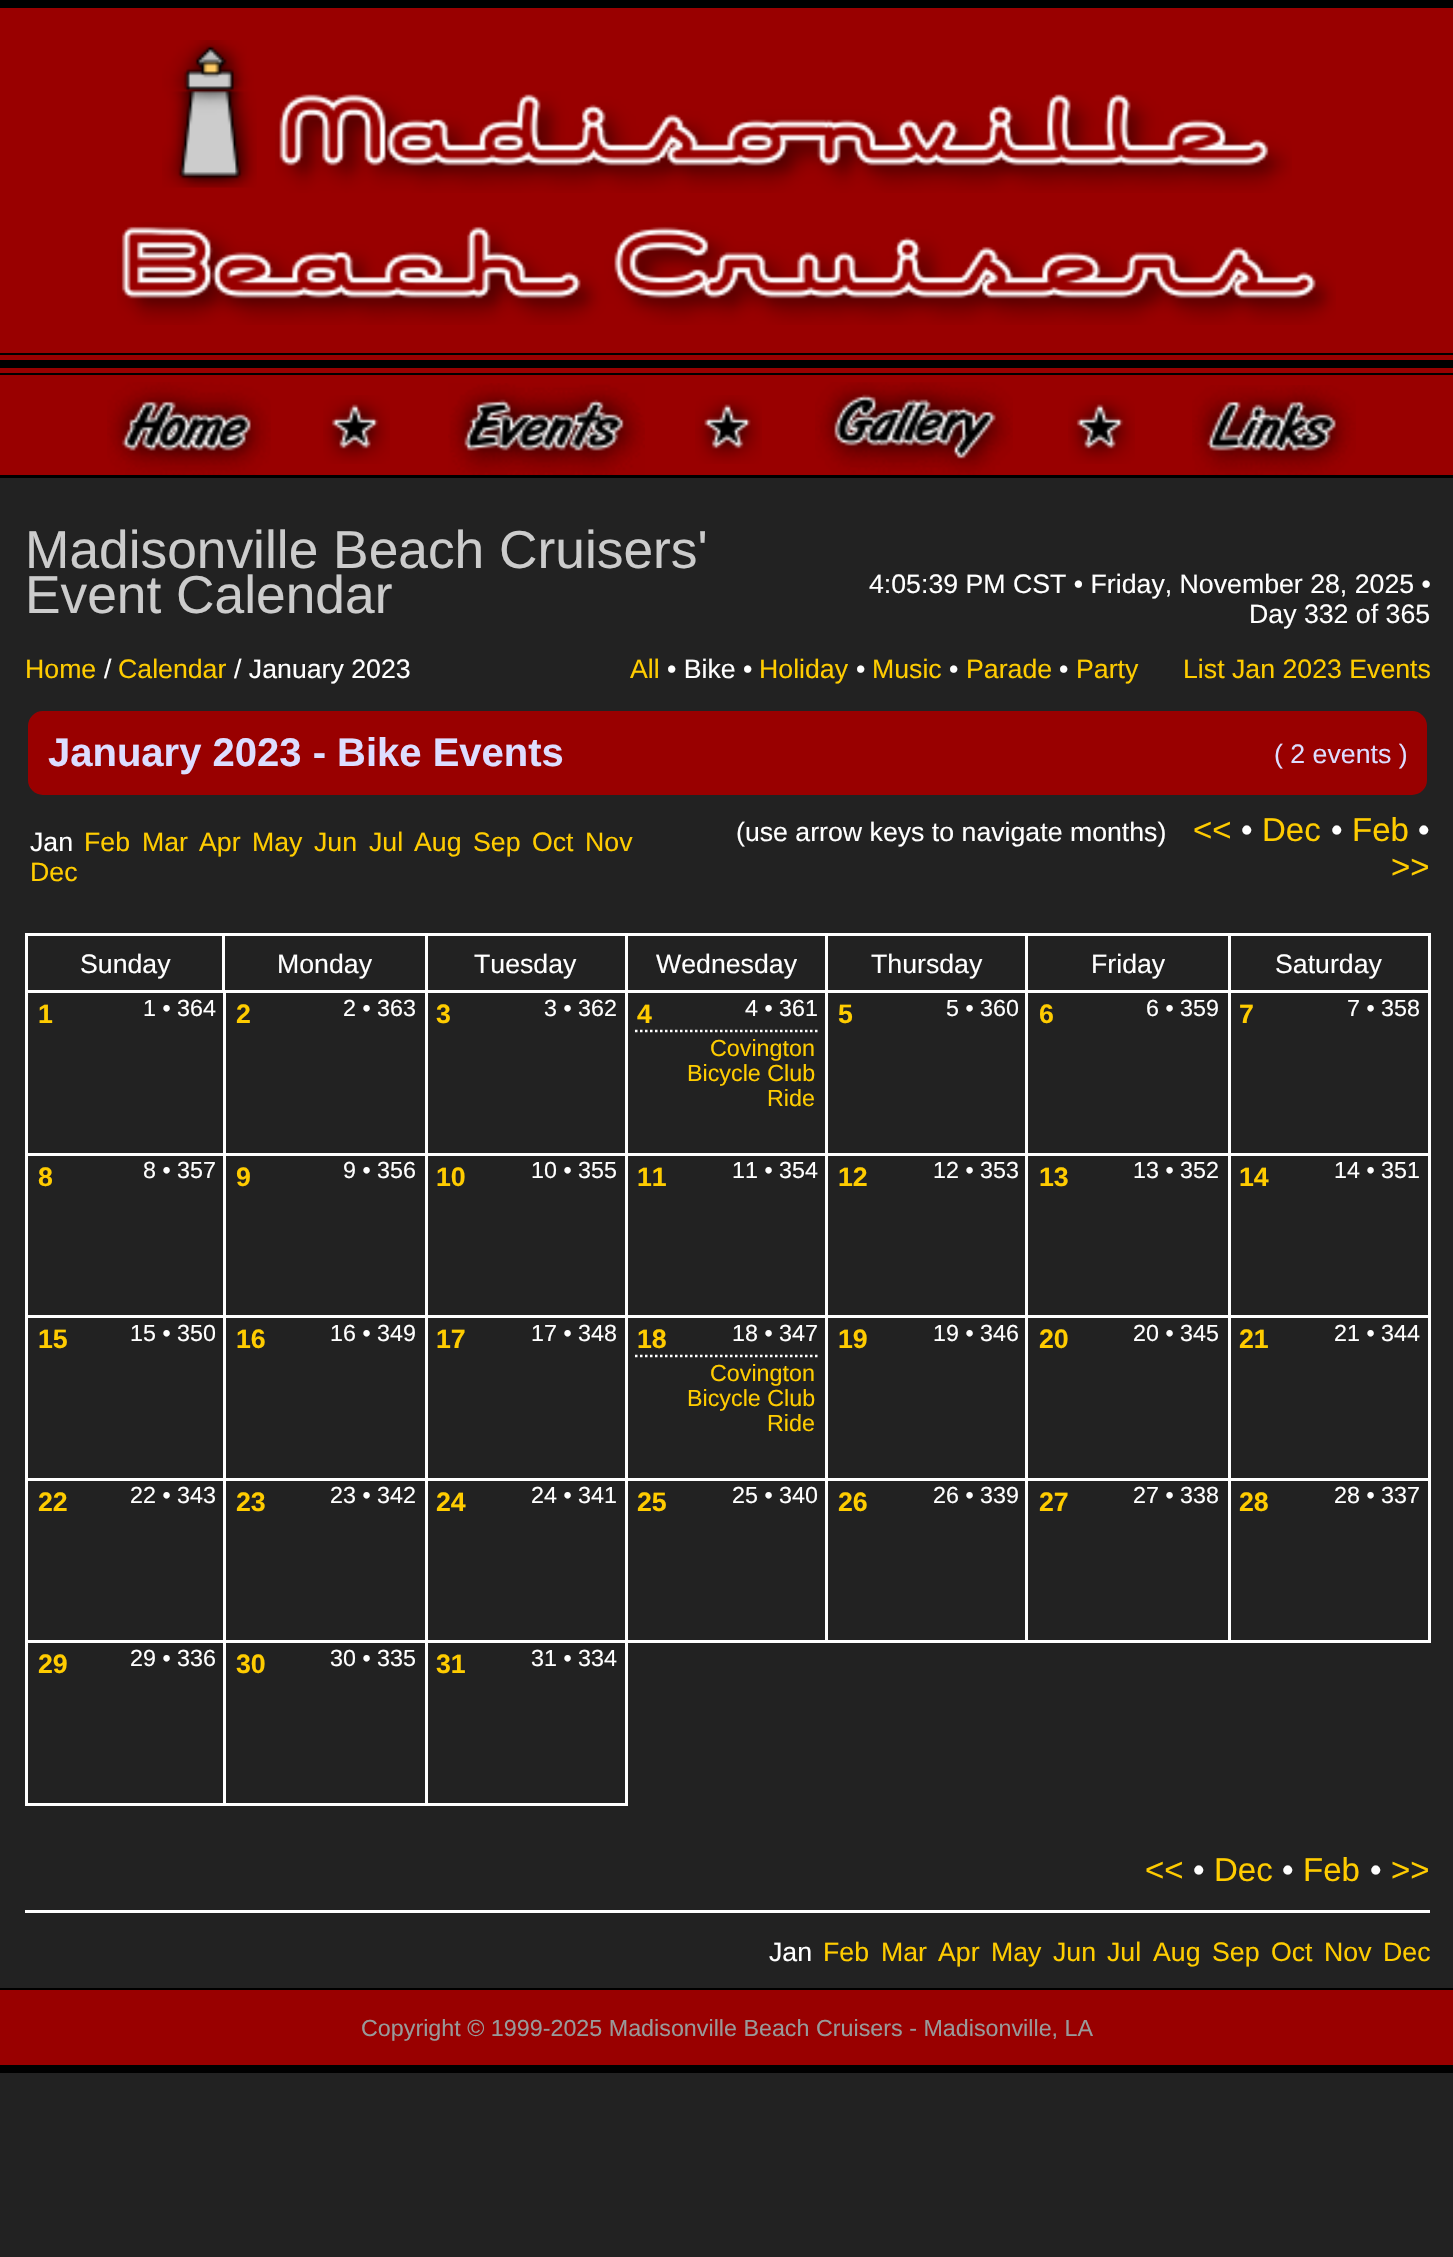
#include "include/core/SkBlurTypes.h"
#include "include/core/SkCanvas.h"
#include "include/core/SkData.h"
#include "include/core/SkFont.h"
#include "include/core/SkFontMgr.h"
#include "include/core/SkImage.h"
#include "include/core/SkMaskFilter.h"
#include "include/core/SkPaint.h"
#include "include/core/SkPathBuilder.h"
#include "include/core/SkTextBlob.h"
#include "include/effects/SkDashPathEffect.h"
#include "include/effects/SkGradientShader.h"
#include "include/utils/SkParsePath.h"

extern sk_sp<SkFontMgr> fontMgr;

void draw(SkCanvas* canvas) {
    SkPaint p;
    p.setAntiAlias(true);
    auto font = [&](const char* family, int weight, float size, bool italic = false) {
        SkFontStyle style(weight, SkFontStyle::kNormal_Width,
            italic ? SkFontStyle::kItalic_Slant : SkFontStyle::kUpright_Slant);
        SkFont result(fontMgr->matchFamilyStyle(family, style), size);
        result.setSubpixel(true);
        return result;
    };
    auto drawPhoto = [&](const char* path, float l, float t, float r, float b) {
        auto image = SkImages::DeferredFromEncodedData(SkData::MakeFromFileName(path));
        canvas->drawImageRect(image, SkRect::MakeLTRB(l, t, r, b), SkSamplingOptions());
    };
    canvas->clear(0xFF222222);
    p.setColor(0xFF000000);
    canvas->drawRect(SkRect::MakeLTRB(0, 0, 1453, 8), p);
    p.setColor(0xFF990000);
    canvas->drawRect(SkRect::MakeLTRB(0, 8, 1453, 353), p);
    drawPhoto("media/1.png", 162, 40, 257, 188);
    drawPhoto("media/2.png", 275, 91, 1292, 193);
    drawPhoto("media/3.png", 117, 222, 1336, 325);
    {
        const struct { float l, t, r, b; SkColor color; } items[] = {
            {0, 353, 1453, 355, 0xFF000000},
            {0, 355, 1453, 360, 0xFF990000},
            {0, 360, 1453, 368, 0xFF000000},
            {0, 368, 1453, 373, 0xFF990000},
            {0, 373, 1453, 375, 0xFF000000},
            {0, 375, 1453, 475, 0xFF990000},
        };
        for (auto [l, t, r, b, color] : items) {
            p.setColor(color);
            canvas->drawRect(SkRect::MakeLTRB(l, t, r, b), p);
        }
    }
    drawPhoto("media/4.png", 107, 382, 271, 475);
    drawPhoto("media/5.png", 323, 395, 390, 464);
    drawPhoto("media/6.png", 448, 383, 645, 475);
    drawPhoto("media/7.png", 695, 395, 762, 464);
    drawPhoto("media/8.png", 815, 382, 1013, 475);
    drawPhoto("media/5.png", 1068, 395, 1135, 464);
    drawPhoto("media/9.png", 1192, 385, 1356, 475);
    p.setColor(0xFF000000);
    canvas->drawRect(SkRect::MakeLTRB(0, 475, 1453, 478), p);
    auto font1 = font("Liberation Sans", 400, 53.3f);
    p.setColor(0xFFCCCCCC);
    canvas->drawString("Madisonville Beach Cruisers'", 25, 568, font1, p);
    canvas->drawString("Event Calendar", 25, 613, font1, p);
    auto font2 = font("Liberation Sans", 400, 26.7f);
    p.setColor(0xFFFFFFFF);
    canvas->drawString("4:05:39 PM CST • Friday, November 28, 2025 •", 869, 593, font2, p);
    canvas->drawString("Day 332 of 365", 1249, 623, font2, p);
    p.setColor(0xFFFFCC00);
    canvas->drawString("Home", 25, 678, font2, p);
    p.setColor(0xFFFFFFFF);
    canvas->drawString("/", 104, 678, font2, p);
    p.setColor(0xFFFFCC00);
    canvas->drawString("Calendar", 118, 678, font2, p);
    p.setColor(0xFFFFFFFF);
    canvas->drawString("/ January 2023", 234, 678, font2, p);
    p.setColor(0xFFFFCC00);
    canvas->drawString("All", 630, 678, font2, p);
    p.setColor(0xFFFFFFFF);
    canvas->drawString("• Bike •", 667, 678, font2, p);
    p.setColor(0xFFFFCC00);
    canvas->drawString("Holiday", 759, 678, font2, p);
    p.setColor(0xFFFFFFFF);
    canvas->drawString("•", 856, 678, font2, p);
    p.setColor(0xFFFFCC00);
    canvas->drawString("Music", 872, 678, font2, p);
    p.setColor(0xFFFFFFFF);
    canvas->drawString("•", 949, 678, font2, p);
    p.setColor(0xFFFFCC00);
    canvas->drawString("Parade", 966, 678, font2, p);
    p.setColor(0xFFFFFFFF);
    canvas->drawString("•", 1059, 678, font2, p);
    p.setColor(0xFFFFCC00);
    canvas->drawString("Party", 1076, 678, font2, p);
    canvas->drawString("List Jan 2023 Events", 1183, 678, font2, p);
    p.setColor(0xFF990000);
    canvas->drawRoundRect(SkRect::MakeLTRB(26.5f, 709.5f, 1428.5f, 796.5f), 16.5f, 16.5f, p);
    p.setStyle(SkPaint::kStroke_Style);
    p.setStrokeWidth(3);
    p.setColor(0xFF222222);
    canvas->drawRoundRect(SkRect::MakeLTRB(26.5f, 709.5f, 1428.5f, 796.5f), 16.5f, 16.5f, p);
    auto font3 = font("Liberation Sans", 700, 40);
    p.setStyle(SkPaint::kFill_Style);
    p.setColor(0xFFDDDDFF);
    canvas->drawString("January 2023 - Bike Events", 48, 766, font3, p);
    canvas->drawString("( 2 events )", 1274, 763, font2, p);
    p.setColor(0xFFFFFFFF);
    canvas->drawString("Jan", 30, 851, font2, p);
    p.setColor(0xFFFFCC00);
    {
        const struct { const char* s; float x, y; } items[] = {
            {"Feb", 84, 851},
            {"Mar", 142, 851},
            {"Apr", 199, 851},
            {"May", 252, 851},
            {"Jun", 314, 851},
            {"Jul", 369, 851},
            {"Aug", 414, 851},
            {"Sep", 473, 851},
            {"Oct", 532, 851},
            {"Nov", 585, 851},
            {"Dec", 30, 881},
        };
        for (auto [s, x, y] : items) {
            canvas->drawString(s, x, y, font2, p);
        }
    }
    p.setColor(0xFFFFFFFF);
    canvas->drawString("(use arrow keys to navigate months)", 736, 841, font2, p);
    auto font4 = font("Liberation Sans", 400, 33);
    p.setColor(0xFFFFCC00);
    canvas->drawString("<<", 1193, 841, font4, p);
    p.setColor(0xFFFFFFFF);
    canvas->drawString("•", 1241, 841, font4, p);
    p.setColor(0xFFFFCC00);
    canvas->drawString("Dec", 1262, 841, font4, p);
    p.setColor(0xFFFFFFFF);
    canvas->drawString("•", 1331, 841, font4, p);
    p.setColor(0xFFFFCC00);
    canvas->drawString("Feb", 1352, 841, font4, p);
    p.setColor(0xFFFFFFFF);
    canvas->drawString("•", 1418, 841, font4, p);
    p.setColor(0xFFFFCC00);
    canvas->drawString(">>", 1391, 878, font4, p);
    p.setStyle(SkPaint::kStroke_Style);
    p.setColor(0xFFFFFFFF);
    canvas->drawRect(SkRect::MakeLTRB(26.5f, 934.5f, 223.5f, 991.5f), p);
    p.setStyle(SkPaint::kFill_Style);
    canvas->drawString("Sunday", 80, 973, font2, p);
    {
        const struct { float l, t, r, b; SkColor color; } items[] = {
            {225, 933, 1230, 936, 0xFFFFFFFF},
            {425, 933, 428, 1155, 0xFFFFFFFF},
            {225, 990, 428, 993, 0xFFFFFFFF},
        };
        for (auto [l, t, r, b, color] : items) {
            p.setColor(color);
            canvas->drawRect(SkRect::MakeLTRB(l, t, r, b), p);
        }
    }
    canvas->drawString("Monday", 277, 973, font2, p);
    canvas->drawRect(SkRect::MakeLTRB(625, 933, 628, 1155), p);
    canvas->drawRect(SkRect::MakeLTRB(428, 990, 628, 993), p);
    canvas->drawString("Tuesday", 474, 973, font2, p);
    canvas->drawRect(SkRect::MakeLTRB(825, 933, 828, 1155), p);
    canvas->drawRect(SkRect::MakeLTRB(628, 990, 828, 993), p);
    canvas->drawString("Wednesday", 656, 973, font2, p);
    canvas->drawRect(SkRect::MakeLTRB(1025, 933, 1028, 1155), p);
    canvas->drawRect(SkRect::MakeLTRB(828, 990, 1028, 993), p);
    canvas->drawString("Thursday", 871, 973, font2, p);
    canvas->drawRect(SkRect::MakeLTRB(1228, 933, 1231, 1155), p);
    canvas->drawRect(SkRect::MakeLTRB(1028, 990, 1230, 993), p);
    canvas->drawString("Friday", 1091, 973, font2, p);
    {
        const struct { float l, t, r, b; SkColor color; } items[] = {
            {1230, 933, 1430, 936, 0xFFFFFFFF},
            {1428, 933, 1431, 1155, 0xFFFFFFFF},
            {1230, 990, 1430, 993, 0xFFFFFFFF},
        };
        for (auto [l, t, r, b, color] : items) {
            p.setColor(color);
            canvas->drawRect(SkRect::MakeLTRB(l, t, r, b), p);
        }
    }
    canvas->drawString("Saturday", 1275, 973, font2, p);
    {
        const struct { float l, t, r, b; SkColor color; } items[] = {
            {223, 993, 226, 1155, 0xFFFFFFFF},
            {25, 1153, 1430, 1156, 0xFFFFFFFF},
            {25, 993, 28, 1155, 0xFFFFFFFF},
        };
        for (auto [l, t, r, b, color] : items) {
            p.setColor(color);
            canvas->drawRect(SkRect::MakeLTRB(l, t, r, b), p);
        }
    }
    auto font5 = font("Liberation Sans", 700, 26.7f);
    p.setColor(0xFFFFCC00);
    canvas->drawString("1", 38, 1023, font5, p);
    auto font6 = font("Liberation Sans", 400, 23.3f);
    p.setColor(0xFFFFFFFF);
    canvas->drawString("1 • 364", 143, 1016, font6, p);
    p.setColor(0xFFFFCC00);
    canvas->drawString("2", 236, 1023, font5, p);
    p.setColor(0xFFFFFFFF);
    canvas->drawString("2 • 363", 343, 1016, font6, p);
    p.setColor(0xFFFFCC00);
    canvas->drawString("3", 436, 1023, font5, p);
    p.setColor(0xFFFFFFFF);
    canvas->drawString("3 • 362", 544, 1016, font6, p);
    p.setColor(0xFFFFCC00);
    canvas->drawString("4", 637, 1023, font5, p);
    p.setColor(0xFFFFFFFF);
    canvas->drawString("4 • 361", 745, 1016, font6, p);
    p.setStyle(SkPaint::kStroke_Style);
    p.setStrokeWidth(2.5f);
    p.setPathEffect(SkDashPathEffect::Make({{2.5f, 2.5f}}, 0));
    canvas->drawPath(SkPathBuilder().moveTo(635, 1031).lineTo(817.5f, 1031).detach(), p);
    p.setPathEffect(nullptr);
    p.setStyle(SkPaint::kFill_Style);
    p.setColor(0xFFFFCC00);
    {
        const struct { const char* s; float x, y; } items[] = {
            {"Covington", 710, 1056},
            {"Bicycle Club", 687, 1081},
            {"Ride", 767, 1106},
        };
        for (auto [s, x, y] : items) {
            canvas->drawString(s, x, y, font6, p);
        }
    }
    canvas->drawString("5", 838, 1023, font5, p);
    p.setColor(0xFFFFFFFF);
    canvas->drawString("5 • 360", 946, 1016, font6, p);
    p.setColor(0xFFFFCC00);
    canvas->drawString("6", 1039, 1023, font5, p);
    p.setColor(0xFFFFFFFF);
    canvas->drawString("6 • 359", 1146, 1016, font6, p);
    p.setColor(0xFFFFCC00);
    canvas->drawString("7", 1239, 1023, font5, p);
    p.setColor(0xFFFFFFFF);
    canvas->drawString("7 • 358", 1347, 1016, font6, p);
    {
        const struct { float l, t, r, b; SkColor color; } items[] = {
            {223, 1155, 226, 1480, 0xFFFFFFFF},
            {25, 1315, 225, 1318, 0xFFFFFFFF},
            {25, 1155, 28, 1318, 0xFFFFFFFF},
        };
        for (auto [l, t, r, b, color] : items) {
            p.setColor(color);
            canvas->drawRect(SkRect::MakeLTRB(l, t, r, b), p);
        }
    }
    p.setColor(0xFFFFCC00);
    canvas->drawString("8", 38, 1186, font5, p);
    p.setColor(0xFFFFFFFF);
    canvas->drawString("8 • 357", 143, 1178, font6, p);
    canvas->drawRect(SkRect::MakeLTRB(425, 1155, 428, 1480), p);
    canvas->drawRect(SkRect::MakeLTRB(225, 1315, 428, 1318), p);
    p.setColor(0xFFFFCC00);
    canvas->drawString("9", 236, 1186, font5, p);
    p.setColor(0xFFFFFFFF);
    canvas->drawString("9 • 356", 343, 1178, font6, p);
    canvas->drawRect(SkRect::MakeLTRB(625, 1155, 628, 1480), p);
    canvas->drawRect(SkRect::MakeLTRB(428, 1315, 628, 1318), p);
    p.setColor(0xFFFFCC00);
    canvas->drawString("10", 436, 1186, font5, p);
    p.setColor(0xFFFFFFFF);
    canvas->drawString("10 • 355", 531, 1178, font6, p);
    canvas->drawRect(SkRect::MakeLTRB(825, 1155, 828, 1480), p);
    canvas->drawRect(SkRect::MakeLTRB(628, 1315, 828, 1318), p);
    p.setColor(0xFFFFCC00);
    canvas->drawString("11", 637, 1186, font5, p);
    p.setColor(0xFFFFFFFF);
    canvas->drawString("11 • 354", 732, 1178, font6, p);
    canvas->drawRect(SkRect::MakeLTRB(1025, 1155, 1028, 1480), p);
    canvas->drawRect(SkRect::MakeLTRB(828, 1315, 1028, 1318), p);
    p.setColor(0xFFFFCC00);
    canvas->drawString("12", 838, 1186, font5, p);
    p.setColor(0xFFFFFFFF);
    canvas->drawString("12 • 353", 933, 1178, font6, p);
    canvas->drawRect(SkRect::MakeLTRB(1228, 1155, 1231, 1480), p);
    canvas->drawRect(SkRect::MakeLTRB(1028, 1315, 1230, 1318), p);
    p.setColor(0xFFFFCC00);
    canvas->drawString("13", 1039, 1186, font5, p);
    p.setColor(0xFFFFFFFF);
    canvas->drawString("13 • 352", 1133, 1178, font6, p);
    canvas->drawRect(SkRect::MakeLTRB(1428, 1155, 1431, 1480), p);
    canvas->drawRect(SkRect::MakeLTRB(1230, 1315, 1430, 1318), p);
    p.setColor(0xFFFFCC00);
    canvas->drawString("14", 1239, 1186, font5, p);
    p.setColor(0xFFFFFFFF);
    canvas->drawString("14 • 351", 1334, 1178, font6, p);
    canvas->drawRect(SkRect::MakeLTRB(25, 1478, 1430, 1481), p);
    canvas->drawRect(SkRect::MakeLTRB(25, 1318, 28, 1480), p);
    p.setColor(0xFFFFCC00);
    canvas->drawString("15", 38, 1348, font5, p);
    p.setColor(0xFFFFFFFF);
    canvas->drawString("15 • 350", 130, 1341, font6, p);
    p.setColor(0xFFFFCC00);
    canvas->drawString("16", 236, 1348, font5, p);
    p.setColor(0xFFFFFFFF);
    canvas->drawString("16 • 349", 330, 1341, font6, p);
    p.setColor(0xFFFFCC00);
    canvas->drawString("17", 436, 1348, font5, p);
    p.setColor(0xFFFFFFFF);
    canvas->drawString("17 • 348", 531, 1341, font6, p);
    p.setColor(0xFFFFCC00);
    canvas->drawString("18", 637, 1348, font5, p);
    p.setColor(0xFFFFFFFF);
    canvas->drawString("18 • 347", 732, 1341, font6, p);
    p.setStyle(SkPaint::kStroke_Style);
    p.setPathEffect(SkDashPathEffect::Make({{2.5f, 2.5f}}, 0));
    canvas->drawPath(SkPathBuilder().moveTo(635, 1356).lineTo(817.5f, 1356).detach(), p);
    p.setPathEffect(nullptr);
    p.setStyle(SkPaint::kFill_Style);
    p.setColor(0xFFFFCC00);
    {
        const struct { const char* s; float x, y; } items[] = {
            {"Covington", 710, 1381},
            {"Bicycle Club", 687, 1406},
            {"Ride", 767, 1431},
        };
        for (auto [s, x, y] : items) {
            canvas->drawString(s, x, y, font6, p);
        }
    }
    canvas->drawString("19", 838, 1348, font5, p);
    p.setColor(0xFFFFFFFF);
    canvas->drawString("19 • 346", 933, 1341, font6, p);
    p.setColor(0xFFFFCC00);
    canvas->drawString("20", 1039, 1348, font5, p);
    p.setColor(0xFFFFFFFF);
    canvas->drawString("20 • 345", 1133, 1341, font6, p);
    p.setColor(0xFFFFCC00);
    canvas->drawString("21", 1239, 1348, font5, p);
    p.setColor(0xFFFFFFFF);
    canvas->drawString("21 • 344", 1334, 1341, font6, p);
    {
        const struct { float l, t, r, b; SkColor color; } items[] = {
            {223, 1480, 226, 1805, 0xFFFFFFFF},
            {25, 1640, 225, 1643, 0xFFFFFFFF},
            {25, 1480, 28, 1643, 0xFFFFFFFF},
        };
        for (auto [l, t, r, b, color] : items) {
            p.setColor(color);
            canvas->drawRect(SkRect::MakeLTRB(l, t, r, b), p);
        }
    }
    p.setColor(0xFFFFCC00);
    canvas->drawString("22", 38, 1511, font5, p);
    p.setColor(0xFFFFFFFF);
    canvas->drawString("22 • 343", 130, 1503, font6, p);
    canvas->drawRect(SkRect::MakeLTRB(425, 1480, 428, 1805), p);
    canvas->drawRect(SkRect::MakeLTRB(225, 1640, 428, 1643), p);
    p.setColor(0xFFFFCC00);
    canvas->drawString("23", 236, 1511, font5, p);
    p.setColor(0xFFFFFFFF);
    canvas->drawString("23 • 342", 330, 1503, font6, p);
    canvas->drawRect(SkRect::MakeLTRB(625, 1480, 628, 1805), p);
    canvas->drawRect(SkRect::MakeLTRB(428, 1640, 628, 1643), p);
    p.setColor(0xFFFFCC00);
    canvas->drawString("24", 436, 1511, font5, p);
    p.setColor(0xFFFFFFFF);
    canvas->drawString("24 • 341", 531, 1503, font6, p);
    canvas->drawRect(SkRect::MakeLTRB(825, 1480, 828, 1643), p);
    canvas->drawRect(SkRect::MakeLTRB(628, 1640, 828, 1643), p);
    p.setColor(0xFFFFCC00);
    canvas->drawString("25", 637, 1511, font5, p);
    p.setColor(0xFFFFFFFF);
    canvas->drawString("25 • 340", 732, 1503, font6, p);
    canvas->drawRect(SkRect::MakeLTRB(1025, 1480, 1028, 1643), p);
    canvas->drawRect(SkRect::MakeLTRB(828, 1640, 1028, 1643), p);
    p.setColor(0xFFFFCC00);
    canvas->drawString("26", 838, 1511, font5, p);
    p.setColor(0xFFFFFFFF);
    canvas->drawString("26 • 339", 933, 1503, font6, p);
    canvas->drawRect(SkRect::MakeLTRB(1228, 1480, 1231, 1643), p);
    canvas->drawRect(SkRect::MakeLTRB(1028, 1640, 1230, 1643), p);
    p.setColor(0xFFFFCC00);
    canvas->drawString("27", 1039, 1511, font5, p);
    p.setColor(0xFFFFFFFF);
    canvas->drawString("27 • 338", 1133, 1503, font6, p);
    canvas->drawRect(SkRect::MakeLTRB(1428, 1480, 1431, 1643), p);
    canvas->drawRect(SkRect::MakeLTRB(1230, 1640, 1430, 1643), p);
    p.setColor(0xFFFFCC00);
    canvas->drawString("28", 1239, 1511, font5, p);
    p.setColor(0xFFFFFFFF);
    canvas->drawString("28 • 337", 1334, 1503, font6, p);
    canvas->drawRect(SkRect::MakeLTRB(25, 1803, 628, 1806), p);
    canvas->drawRect(SkRect::MakeLTRB(25, 1643, 28, 1805), p);
    p.setColor(0xFFFFCC00);
    canvas->drawString("29", 38, 1673, font5, p);
    p.setColor(0xFFFFFFFF);
    canvas->drawString("29 • 336", 130, 1666, font6, p);
    p.setColor(0xFFFFCC00);
    canvas->drawString("30", 236, 1673, font5, p);
    p.setColor(0xFFFFFFFF);
    canvas->drawString("30 • 335", 330, 1666, font6, p);
    p.setColor(0xFFFFCC00);
    canvas->drawString("31", 436, 1673, font5, p);
    p.setColor(0xFFFFFFFF);
    canvas->drawString("31 • 334", 531, 1666, font6, p);
    p.setColor(0xFFFFCC00);
    canvas->drawString("<<", 1145, 1881, font4, p);
    p.setColor(0xFFFFFFFF);
    canvas->drawString("•", 1193, 1881, font4, p);
    p.setColor(0xFFFFCC00);
    canvas->drawString("Dec", 1214, 1881, font4, p);
    p.setColor(0xFFFFFFFF);
    canvas->drawString("•", 1282, 1881, font4, p);
    p.setColor(0xFFFFCC00);
    canvas->drawString("Feb", 1303, 1881, font4, p);
    p.setColor(0xFFFFFFFF);
    canvas->drawString("•", 1370, 1881, font4, p);
    p.setColor(0xFFFFCC00);
    canvas->drawString(">>", 1391, 1881, font4, p);
    p.setColor(0xFFFFFFFF);
    canvas->drawRect(SkRect::MakeLTRB(25, 1910, 1430, 1913), p);
    canvas->drawString("Jan", 769, 1961, font2, p);
    p.setColor(0xFFFFCC00);
    {
        const struct { const char* s; float x, y; } items[] = {
            {"Feb", 823, 1961},
            {"Mar", 881, 1961},
            {"Apr", 938, 1961},
            {"May", 991, 1961},
            {"Jun", 1053, 1961},
            {"Jul", 1107, 1961},
            {"Aug", 1153, 1961},
            {"Sep", 1212, 1961},
            {"Oct", 1271, 1961},
            {"Nov", 1324, 1961},
            {"Dec", 1383, 1961},
        };
        for (auto [s, x, y] : items) {
            canvas->drawString(s, x, y, font2, p);
        }
    }
    p.setColor(0xFF000000);
    canvas->drawRect(SkRect::MakeLTRB(0, 1988, 1453, 1990), p);
    p.setColor(0xFF990000);
    canvas->drawRect(SkRect::MakeLTRB(0, 1990, 1453, 2065), p);
    p.setColor(0xFF999999);
    canvas->drawString("Copyright © 1999-2025 Madisonville Beach Cruisers - Madisonville, LA", 361, 2036, font6, p);
    p.setColor(0xFF000000);
    canvas->drawRect(SkRect::MakeLTRB(0, 2065, 1453, 2073), p);
}
